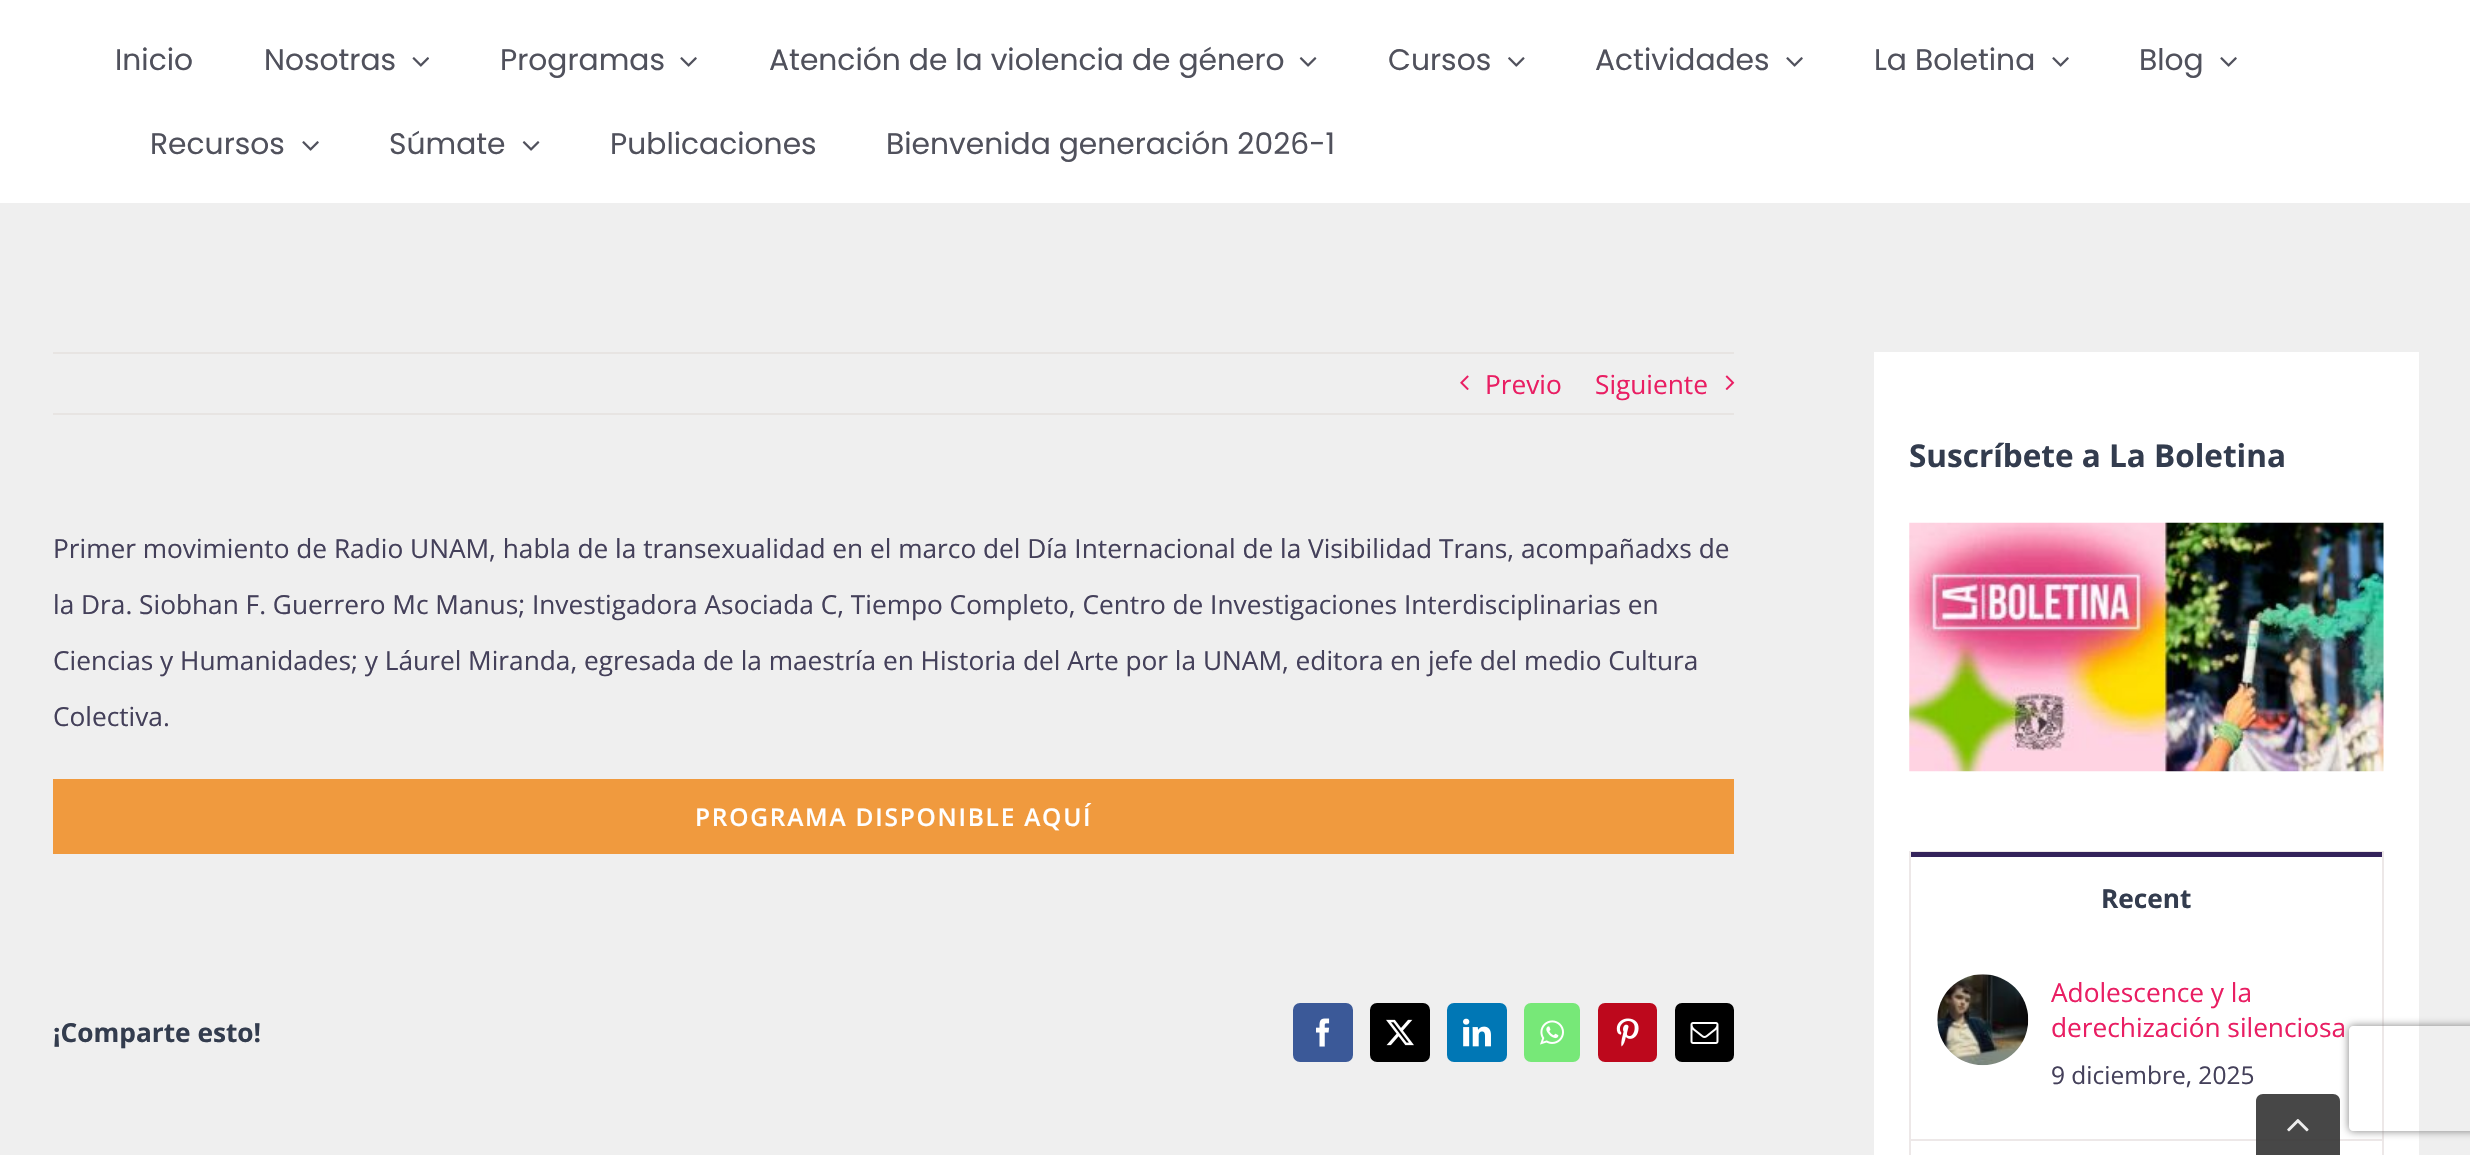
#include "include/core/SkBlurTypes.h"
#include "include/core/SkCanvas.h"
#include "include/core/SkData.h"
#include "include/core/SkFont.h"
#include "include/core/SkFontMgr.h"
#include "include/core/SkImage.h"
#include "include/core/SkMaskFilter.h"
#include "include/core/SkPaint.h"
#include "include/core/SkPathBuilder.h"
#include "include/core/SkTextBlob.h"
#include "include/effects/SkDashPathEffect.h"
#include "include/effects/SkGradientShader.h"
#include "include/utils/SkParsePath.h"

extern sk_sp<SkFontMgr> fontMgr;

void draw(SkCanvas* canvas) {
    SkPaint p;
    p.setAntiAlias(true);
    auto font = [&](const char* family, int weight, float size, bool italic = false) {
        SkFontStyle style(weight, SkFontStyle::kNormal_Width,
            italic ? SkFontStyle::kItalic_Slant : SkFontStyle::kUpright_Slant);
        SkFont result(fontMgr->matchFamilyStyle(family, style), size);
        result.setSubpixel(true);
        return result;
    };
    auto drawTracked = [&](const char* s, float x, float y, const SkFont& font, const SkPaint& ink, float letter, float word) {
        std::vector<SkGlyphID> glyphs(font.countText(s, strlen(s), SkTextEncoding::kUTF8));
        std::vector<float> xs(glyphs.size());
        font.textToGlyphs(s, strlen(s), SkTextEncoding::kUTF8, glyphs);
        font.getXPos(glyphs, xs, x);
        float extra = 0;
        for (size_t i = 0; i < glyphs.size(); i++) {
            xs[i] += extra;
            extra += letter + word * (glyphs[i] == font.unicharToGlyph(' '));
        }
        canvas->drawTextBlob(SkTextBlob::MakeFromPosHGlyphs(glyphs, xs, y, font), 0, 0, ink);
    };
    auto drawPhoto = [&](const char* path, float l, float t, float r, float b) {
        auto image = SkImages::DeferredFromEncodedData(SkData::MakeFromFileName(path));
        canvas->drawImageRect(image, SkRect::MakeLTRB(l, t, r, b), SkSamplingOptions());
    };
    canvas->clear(0xFFEFEFEF);
    p.setColor(0xFFFFFFFF);
    canvas->drawRect(SkRect::MakeLTRB(0, 0, 2470, 203), p);
    auto font1 = font("Poppins", 400, 29.75f);
    p.setColor(0xFF50515C);
    canvas->drawString("Inicio", 115, 70, font1, p);
    canvas->drawString("Nosotras", 264, 70, font1, p);
    drawPhoto("media/1.png", 412, 57, 429, 67);
    canvas->drawString("Programas", 500, 70, font1, p);
    drawPhoto("media/2.png", 680, 57, 697, 67);
    canvas->drawString("Atención de la violencia de género", 769, 70, font1, p);
    drawPhoto("media/3.png", 1299, 57, 1317, 67);
    canvas->drawString("Cursos", 1388, 70, font1, p);
    drawPhoto("media/4.png", 1508, 57, 1525, 67);
    canvas->drawString("Actividades", 1595, 70, font1, p);
    drawPhoto("media/2.png", 1786, 57, 1803, 67);
    canvas->drawString("La Boletina", 1874, 70, font1, p);
    drawPhoto("media/2.png", 2052, 57, 2069, 67);
    canvas->drawString("Blog", 2139, 70, font1, p);
    drawPhoto("media/2.png", 2220, 57, 2237, 67);
    canvas->drawString("Recursos", 150, 154, font1, p);
    drawPhoto("media/2.png", 302, 141, 319, 151);
    canvas->drawString("Súmate", 389, 154, font1, p);
    drawPhoto("media/3.png", 522, 141, 540, 151);
    canvas->drawString("Publicaciones", 610, 154, font1, p);
    canvas->drawString("Bienvenida generación 2026-1", 886, 154, font1, p);
    p.setColor(0xFFE7E4E2);
    canvas->drawRect(SkRect::MakeLTRB(53, 352, 1734, 354), p);
    canvas->drawRect(SkRect::MakeLTRB(53, 413, 1734, 415), p);
    drawPhoto("media/5.png", 1460, 375, 1469, 390);
    auto font2 = font("Open Sans", 400, 26.25f);
    p.setColor(0xFFE91E63);
    canvas->drawString("Previo", 1485, 394, font2, p);
    canvas->drawString("Siguiente", 1595, 394, font2, p);
    drawPhoto("media/6.png", 1725, 375, 1735, 390);
    p.setColor(0xFF44405A);
    {
        const struct { const char* s; float x, y; } items[] = {
            {"Primer movimiento de Radio UNAM, habla de la transexualidad en el marco del Día Internacional de la Visibilidad Trans, acompañadxs de", 53, 558},
            {"la Dra. Siobhan F. Guerrero Mc Manus; Investigadora Asociada C, Tiempo Completo, Centro de Investigaciones Interdisciplinarias en", 53, 614},
            {"Ciencias y Humanidades; y Láurel Miranda, egresada de la maestría en Historia del Arte por la UNAM, editora en jefe del medio Cultura", 53, 670},
            {"Colectiva.", 53, 726},
        };
        for (auto [s, x, y] : items) {
            canvas->drawString(s, x, y, font2, p);
        }
    }
    p.setColor(0xFFF09A3E);
    canvas->drawRect(SkRect::MakeLTRB(53, 779, 1734, 854), p);
    auto font3 = font("Open Sans", 600, 24.5f);
    p.setColor(0xFFFFFFFF);
    drawTracked("PROGRAMA DISPONIBLE AQUÍ", 695, 826, font3, p, 1.75f, 0);
    auto font4 = font("Open Sans", 700, 26.25f);
    p.setColor(0xFF333C4E);
    canvas->drawString("¡Comparte esto!", 53, 1042, font4, p);
    p.setColor(0xFF3B5998);
    canvas->drawRoundRect(SkRect::MakeLTRB(1294, 1004, 1352, 1061), 6, 6, p);
    p.setStyle(SkPaint::kStroke_Style);
    p.setStrokeWidth(2);
    canvas->drawRoundRect(SkRect::MakeLTRB(1294, 1004, 1352, 1061), 6, 6, p);
    drawPhoto("media/7.png", 1316, 1018, 1330, 1047);
    p.setStyle(SkPaint::kFill_Style);
    p.setColor(0xFF000000);
    canvas->drawRoundRect(SkRect::MakeLTRB(1371, 1004, 1429, 1061), 6, 6, p);
    p.setStyle(SkPaint::kStroke_Style);
    canvas->drawRoundRect(SkRect::MakeLTRB(1371, 1004, 1429, 1061), 6, 6, p);
    drawPhoto("media/8.png", 1386, 1019, 1414, 1046);
    p.setStyle(SkPaint::kFill_Style);
    p.setColor(0xFF0077B5);
    canvas->drawRoundRect(SkRect::MakeLTRB(1448, 1004, 1506, 1061), 6, 6, p);
    p.setStyle(SkPaint::kStroke_Style);
    canvas->drawRoundRect(SkRect::MakeLTRB(1448, 1004, 1506, 1061), 6, 6, p);
    drawPhoto("media/9.png", 1463, 1018, 1491, 1047);
    p.setStyle(SkPaint::kFill_Style);
    p.setColor(0xFF77E878);
    canvas->drawRoundRect(SkRect::MakeLTRB(1525, 1004, 1579, 1061), 6, 6, p);
    p.setStyle(SkPaint::kStroke_Style);
    canvas->drawRoundRect(SkRect::MakeLTRB(1525, 1004, 1579, 1061), 6, 6, p);
    drawPhoto("media/10.png", 1540, 1020, 1564, 1045);
    p.setStyle(SkPaint::kFill_Style);
    p.setColor(0xFFBD081C);
    canvas->drawRoundRect(SkRect::MakeLTRB(1599, 1004, 1656, 1061), 6, 6, p);
    p.setStyle(SkPaint::kStroke_Style);
    canvas->drawRoundRect(SkRect::MakeLTRB(1599, 1004, 1656, 1061), 6, 6, p);
    drawPhoto("media/11.png", 1616, 1018, 1639, 1047);
    p.setStyle(SkPaint::kFill_Style);
    p.setColor(0xFF000000);
    canvas->drawRoundRect(SkRect::MakeLTRB(1676, 1004, 1733, 1061), 6, 6, p);
    p.setStyle(SkPaint::kStroke_Style);
    canvas->drawRoundRect(SkRect::MakeLTRB(1676, 1004, 1733, 1061), 6, 6, p);
    drawPhoto("media/12.png", 1690, 1022, 1719, 1044);
    p.setStyle(SkPaint::kFill_Style);
    p.setColor(0xFFFFFFFF);
    canvas->drawRect(SkRect::MakeLTRB(1874, 352, 2419, 1155), p);
    auto font5 = font("Open Sans", 700, 31.5f);
    p.setColor(0xFF333C4E);
    canvas->drawString("Suscríbete a La Boletina", 1909, 467, font5, p);
    drawPhoto("media/13.png", 1909, 522, 2384, 772);
    p.setStyle(SkPaint::kStroke_Style);
    p.setColor(0xFFEDE8E8);
    canvas->drawRect(SkRect::MakeLTRB(1910, 852, 2383, 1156), p);
    p.setStyle(SkPaint::kFill_Style);
    p.setColor(0xFF34235B);
    canvas->drawRect(SkRect::MakeLTRB(1911, 852, 2382, 857), p);
    p.setColor(0xFF333C4E);
    canvas->drawString("Recent", 2101, 908, font4, p);
    p.setColor(0xFFEDE8E8);
    canvas->drawRect(SkRect::MakeLTRB(1911, 1139, 2382, 1141), p);
    drawPhoto("media/14.png", 1937, 974, 2029, 1066);
    p.setColor(0xFFE91E63);
    canvas->drawString("Adolescence y la", 2051, 1002, font2, p);
    canvas->drawString("derechización silenciosa", 2051, 1037, font2, p);
    auto font6 = font("Open Sans", 400, 24.5f);
    p.setColor(0xFF44405A);
    canvas->drawString("9 diciembre, 2025", 2051, 1084, font6, p);
    canvas->save();
    canvas->clipPath(SkPathBuilder(SkPathFillType::kEvenOdd).moveTo(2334, 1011).lineTo(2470, 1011).lineTo(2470, 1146).lineTo(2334, 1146).close().moveTo(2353, 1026).lineTo(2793, 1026).cubicTo(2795, 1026, 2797, 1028, 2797, 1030).lineTo(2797, 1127).cubicTo(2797, 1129, 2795, 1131, 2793, 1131).lineTo(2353, 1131).cubicTo(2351, 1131, 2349, 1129, 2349, 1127).lineTo(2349, 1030).cubicTo(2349, 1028, 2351, 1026, 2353, 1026).close().detach(), true);
    p.setColor(0xFF808080);
    p.setMaskFilter(SkMaskFilter::MakeBlur(kNormal_SkBlurStyle, 4.5f));
    canvas->drawRoundRect(SkRect::MakeLTRB(2349, 1026, 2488, 1131), 4, 4, p);
    p.setMaskFilter(nullptr);
    canvas->restore();
    p.setColor(0xE6333333);
    canvas->drawPath(SkPathBuilder().moveTo(2263, 1094).lineTo(2333, 1094).cubicTo(2337, 1094, 2340, 1097, 2340, 1101).lineTo(2340, 1155).lineTo(2256, 1155).lineTo(2256, 1101).cubicTo(2256, 1097, 2259, 1094, 2263, 1094).close().detach(), p);
    drawPhoto("media/15.png", 2287, 1119, 2309, 1132);
}
